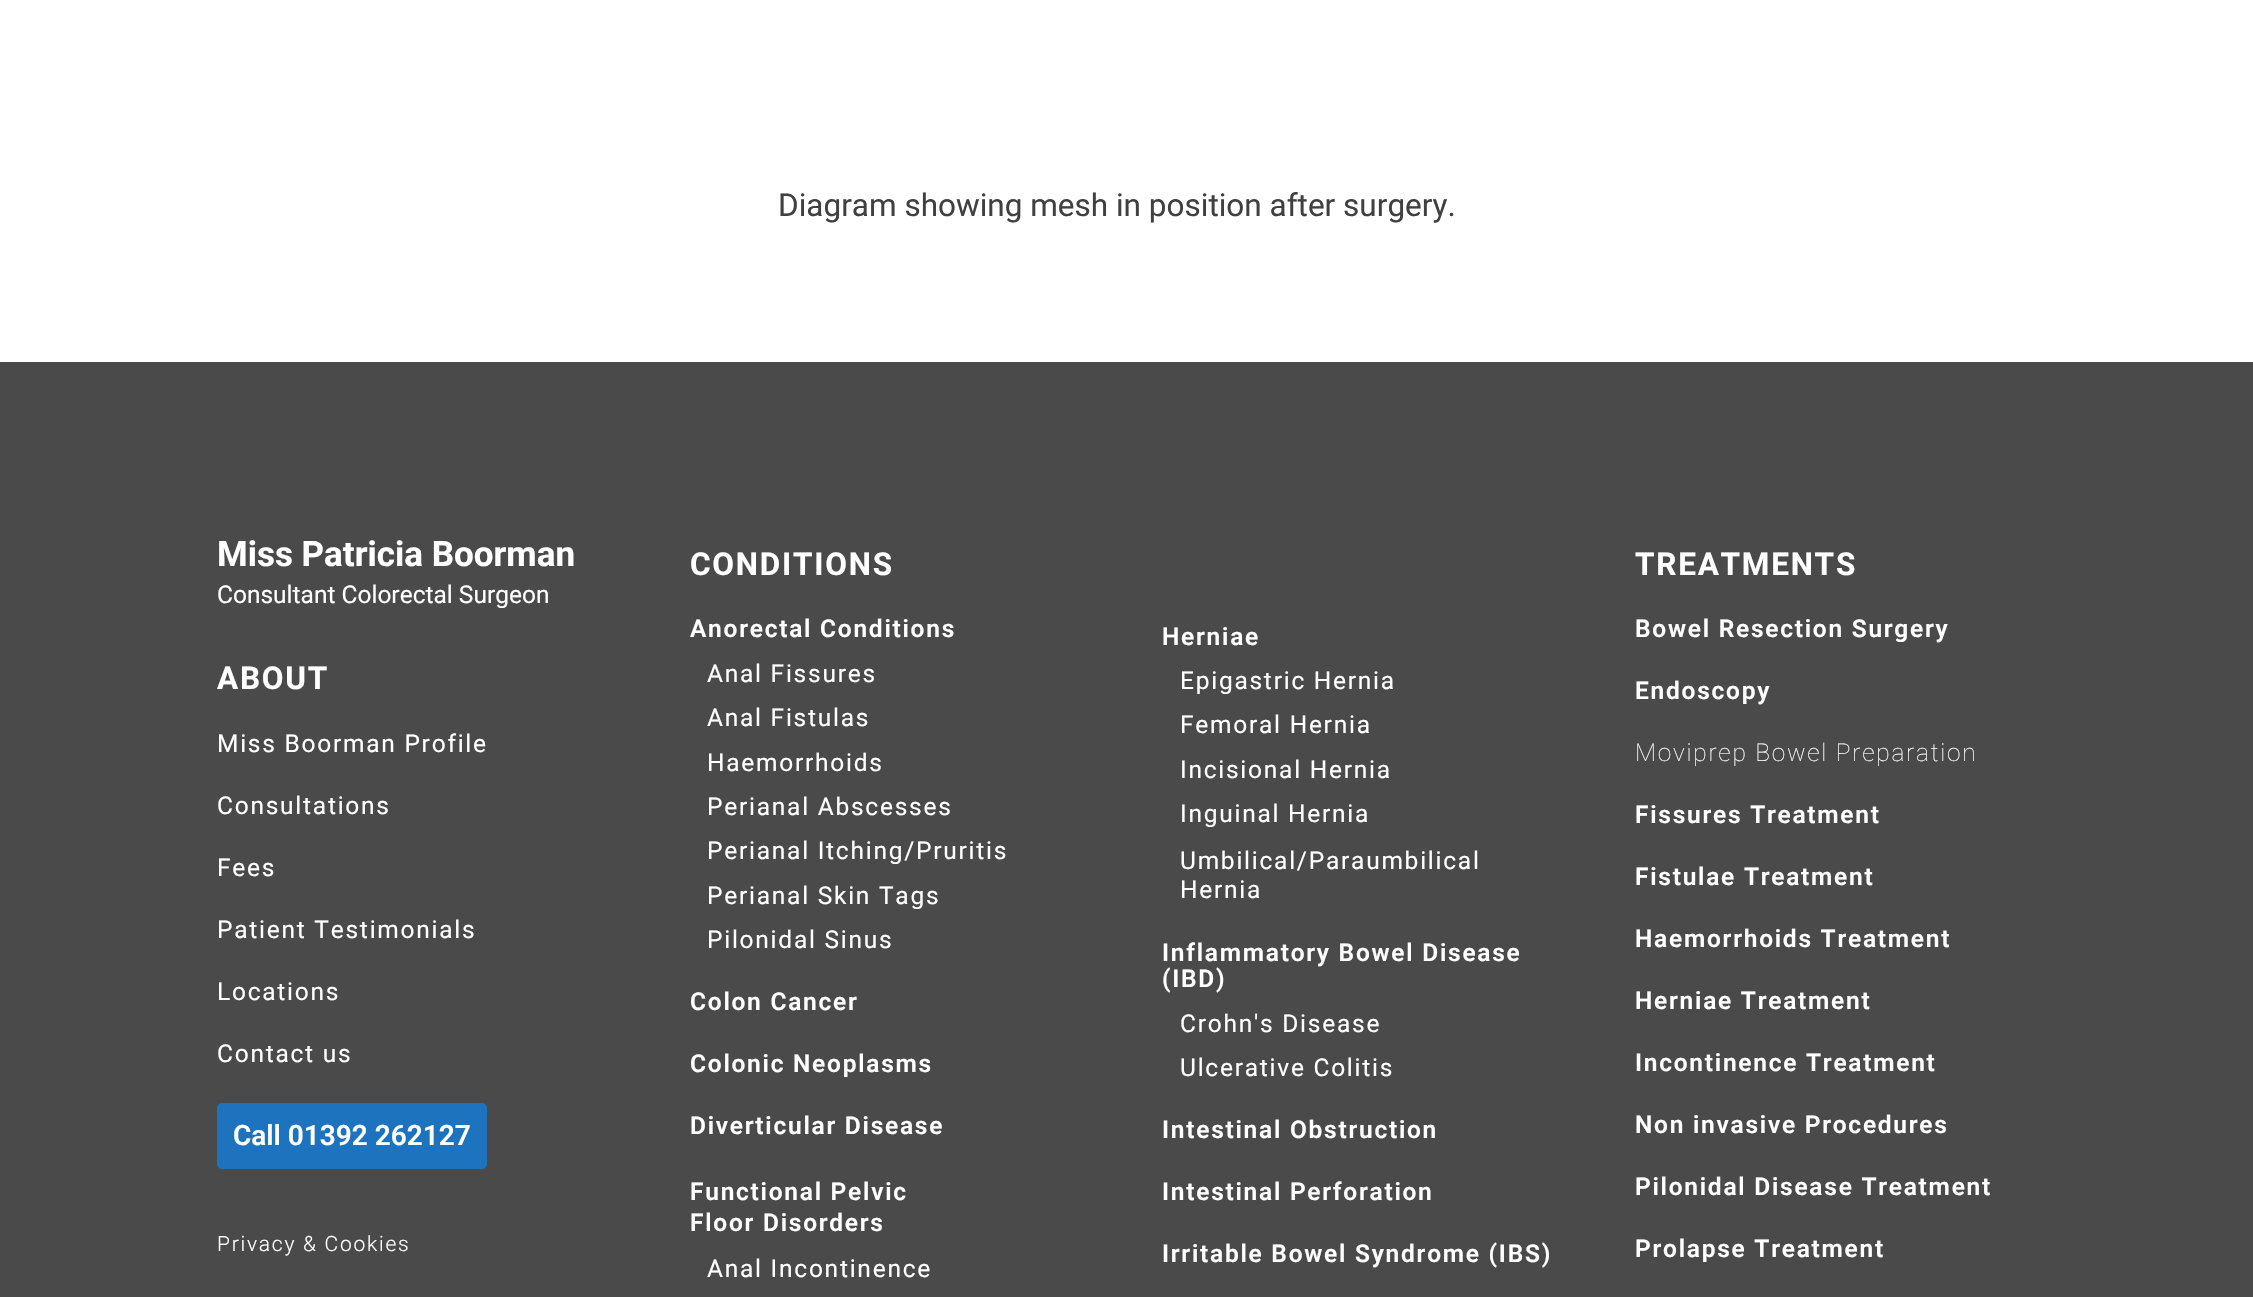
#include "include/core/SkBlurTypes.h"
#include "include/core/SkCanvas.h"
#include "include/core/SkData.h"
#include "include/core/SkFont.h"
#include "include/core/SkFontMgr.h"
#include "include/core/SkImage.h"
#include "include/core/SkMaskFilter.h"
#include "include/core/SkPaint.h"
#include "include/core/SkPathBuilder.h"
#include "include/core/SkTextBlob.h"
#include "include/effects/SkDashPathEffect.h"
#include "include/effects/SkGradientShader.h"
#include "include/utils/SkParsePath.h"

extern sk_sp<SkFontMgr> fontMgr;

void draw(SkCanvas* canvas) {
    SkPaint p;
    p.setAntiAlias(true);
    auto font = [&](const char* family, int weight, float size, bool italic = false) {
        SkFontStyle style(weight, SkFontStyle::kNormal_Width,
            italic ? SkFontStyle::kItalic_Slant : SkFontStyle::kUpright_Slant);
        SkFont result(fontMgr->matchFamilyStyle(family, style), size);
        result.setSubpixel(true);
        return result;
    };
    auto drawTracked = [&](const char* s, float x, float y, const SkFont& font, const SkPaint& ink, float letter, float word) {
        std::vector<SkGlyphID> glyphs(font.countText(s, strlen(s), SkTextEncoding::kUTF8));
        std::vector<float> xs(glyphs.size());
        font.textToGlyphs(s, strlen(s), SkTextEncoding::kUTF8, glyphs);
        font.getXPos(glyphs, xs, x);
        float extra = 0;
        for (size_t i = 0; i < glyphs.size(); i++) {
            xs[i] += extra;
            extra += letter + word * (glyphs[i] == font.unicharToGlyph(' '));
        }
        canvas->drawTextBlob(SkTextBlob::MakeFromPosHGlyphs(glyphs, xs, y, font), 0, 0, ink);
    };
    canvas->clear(0xFFFFFFFF);
    auto font1 = font("Roboto", 400, 31.5f);
    p.setColor(0xFF404040);
    canvas->drawString("Diagram showing mesh in position after surgery.", 778, 216, font1, p);
    p.setColor(0xFF4A4A4A);
    canvas->drawRect(SkRect::MakeLTRB(0, 362, 2253, 1297), p);
    auto font2 = font("Roboto", 700, 35);
    p.setColor(0xFFFFFFFF);
    canvas->drawString("Miss Patricia Boorman", 217, 566, font2, p);
    auto font3 = font("Roboto", 400, 24.5f);
    canvas->drawString("Consultant Colorectal Surgeon", 217, 603, font3, p);
    auto font4 = font("Roboto", 700, 31.5f);
    drawTracked("ABOUT", 217, 689, font4, p, 1.75f, 0);
    {
        const struct { const char* s; float x, y; } items[] = {
            {"Miss Boorman Profile", 217, 752},
            {"Consultations", 217, 814},
            {"Fees", 217, 876},
            {"Patient Testimonials", 217, 938},
            {"Locations", 217, 1000},
            {"Contact us", 217, 1062},
        };
        for (auto [s, x, y] : items) {
            drawTracked(s, x, y, font3, p, 1.75f, 0);
        }
    }
    p.setColor(0xFF1E73BE);
    canvas->drawRoundRect(SkRect::MakeLTRB(218, 1104, 486, 1168), 4, 4, p);
    p.setStyle(SkPaint::kStroke_Style);
    p.setStrokeWidth(2);
    canvas->drawRoundRect(SkRect::MakeLTRB(218, 1104, 486, 1168), 4, 4, p);
    auto font5 = font("Roboto", 600, 28);
    p.setStyle(SkPaint::kFill_Style);
    p.setColor(0xFFFFFFFF);
    canvas->drawString("Call 01392 262127", 233, 1145, font5, p);
    auto font6 = font("Roboto", 300, 21);
    drawTracked("Privacy & Cookies", 217, 1251, font6, p, 1.75f, 0);
    drawTracked("CONDITIONS", 690, 575, font4, p, 1.75f, 0);
    auto font7 = font("Roboto", 600, 24.5f);
    drawTracked("Anorectal Conditions", 690, 637, font7, p, 1.75f, 0);
    {
        const struct { const char* s; float x, y; } items[] = {
            {"Anal Fissures", 707, 682},
            {"Anal Fistulas", 707, 726},
            {"Haemorrhoids", 707, 771},
            {"Perianal Abscesses", 707, 815},
            {"Perianal Itching/Pruritis", 707, 859},
            {"Perianal Skin Tags", 707, 904},
            {"Pilonidal Sinus", 707, 948},
        };
        for (auto [s, x, y] : items) {
            drawTracked(s, x, y, font3, p, 1.75f, 0);
        }
    }
    {
        const struct { const char* s; float x, y; } items[] = {
            {"Colon Cancer", 690, 1010},
            {"Colonic Neoplasms", 690, 1072},
            {"Diverticular Disease", 690, 1134},
            {"Functional Pelvic", 690, 1200},
            {"Floor Disorders", 690, 1231},
        };
        for (auto [s, x, y] : items) {
            drawTracked(s, x, y, font7, p, 1.75f, 0);
        }
    }
    drawTracked("Anal Incontinence", 707, 1277, font3, p, 1.75f, 0);
    drawTracked("Herniae", 1162, 645, font7, p, 1.75f, 0);
    {
        const struct { const char* s; float x, y; } items[] = {
            {"Epigastric Hernia", 1180, 689},
            {"Femoral Hernia", 1180, 733},
            {"Incisional Hernia", 1180, 778},
            {"Inguinal Hernia", 1180, 822},
            {"Umbilical/Paraumbilical", 1180, 869},
            {"Hernia", 1180, 898},
        };
        for (auto [s, x, y] : items) {
            drawTracked(s, x, y, font3, p, 1.75f, 0);
        }
    }
    drawTracked("Inflammatory Bowel Disease", 1162, 961, font7, p, 1.75f, 0);
    drawTracked("(IBD)", 1162, 987, font7, p, 1.75f, 0);
    drawTracked("Crohn's Disease", 1180, 1032, font3, p, 1.75f, 0);
    drawTracked("Ulcerative Colitis", 1180, 1076, font3, p, 1.75f, 0);
    {
        const struct { const char* s; float x, y; } items[] = {
            {"Intestinal Obstruction", 1162, 1138},
            {"Intestinal Perforation", 1162, 1200},
            {"Irritable Bowel Syndrome (IBS)", 1162, 1262},
        };
        for (auto [s, x, y] : items) {
            drawTracked(s, x, y, font7, p, 1.75f, 0);
        }
    }
    drawTracked("TREATMENTS", 1635, 575, font4, p, 1.75f, 0);
    drawTracked("Bowel Resection Surgery", 1635, 637, font7, p, 1.75f, 0);
    drawTracked("Endoscopy", 1635, 699, font7, p, 1.75f, 0);
    auto font8 = font("Roboto", 100, 24.5f);
    drawTracked("Moviprep Bowel Preparation", 1635, 761, font8, p, 1.75f, 0);
    {
        const struct { const char* s; float x, y; } items[] = {
            {"Fissures Treatment", 1635, 823},
            {"Fistulae Treatment", 1635, 885},
            {"Haemorrhoids Treatment", 1635, 947},
            {"Herniae Treatment", 1635, 1009},
            {"Incontinence Treatment", 1635, 1071},
            {"Non invasive Procedures", 1635, 1133},
            {"Pilonidal Disease Treatment", 1635, 1195},
            {"Prolapse Treatment", 1635, 1257},
        };
        for (auto [s, x, y] : items) {
            drawTracked(s, x, y, font7, p, 1.75f, 0);
        }
    }
}
